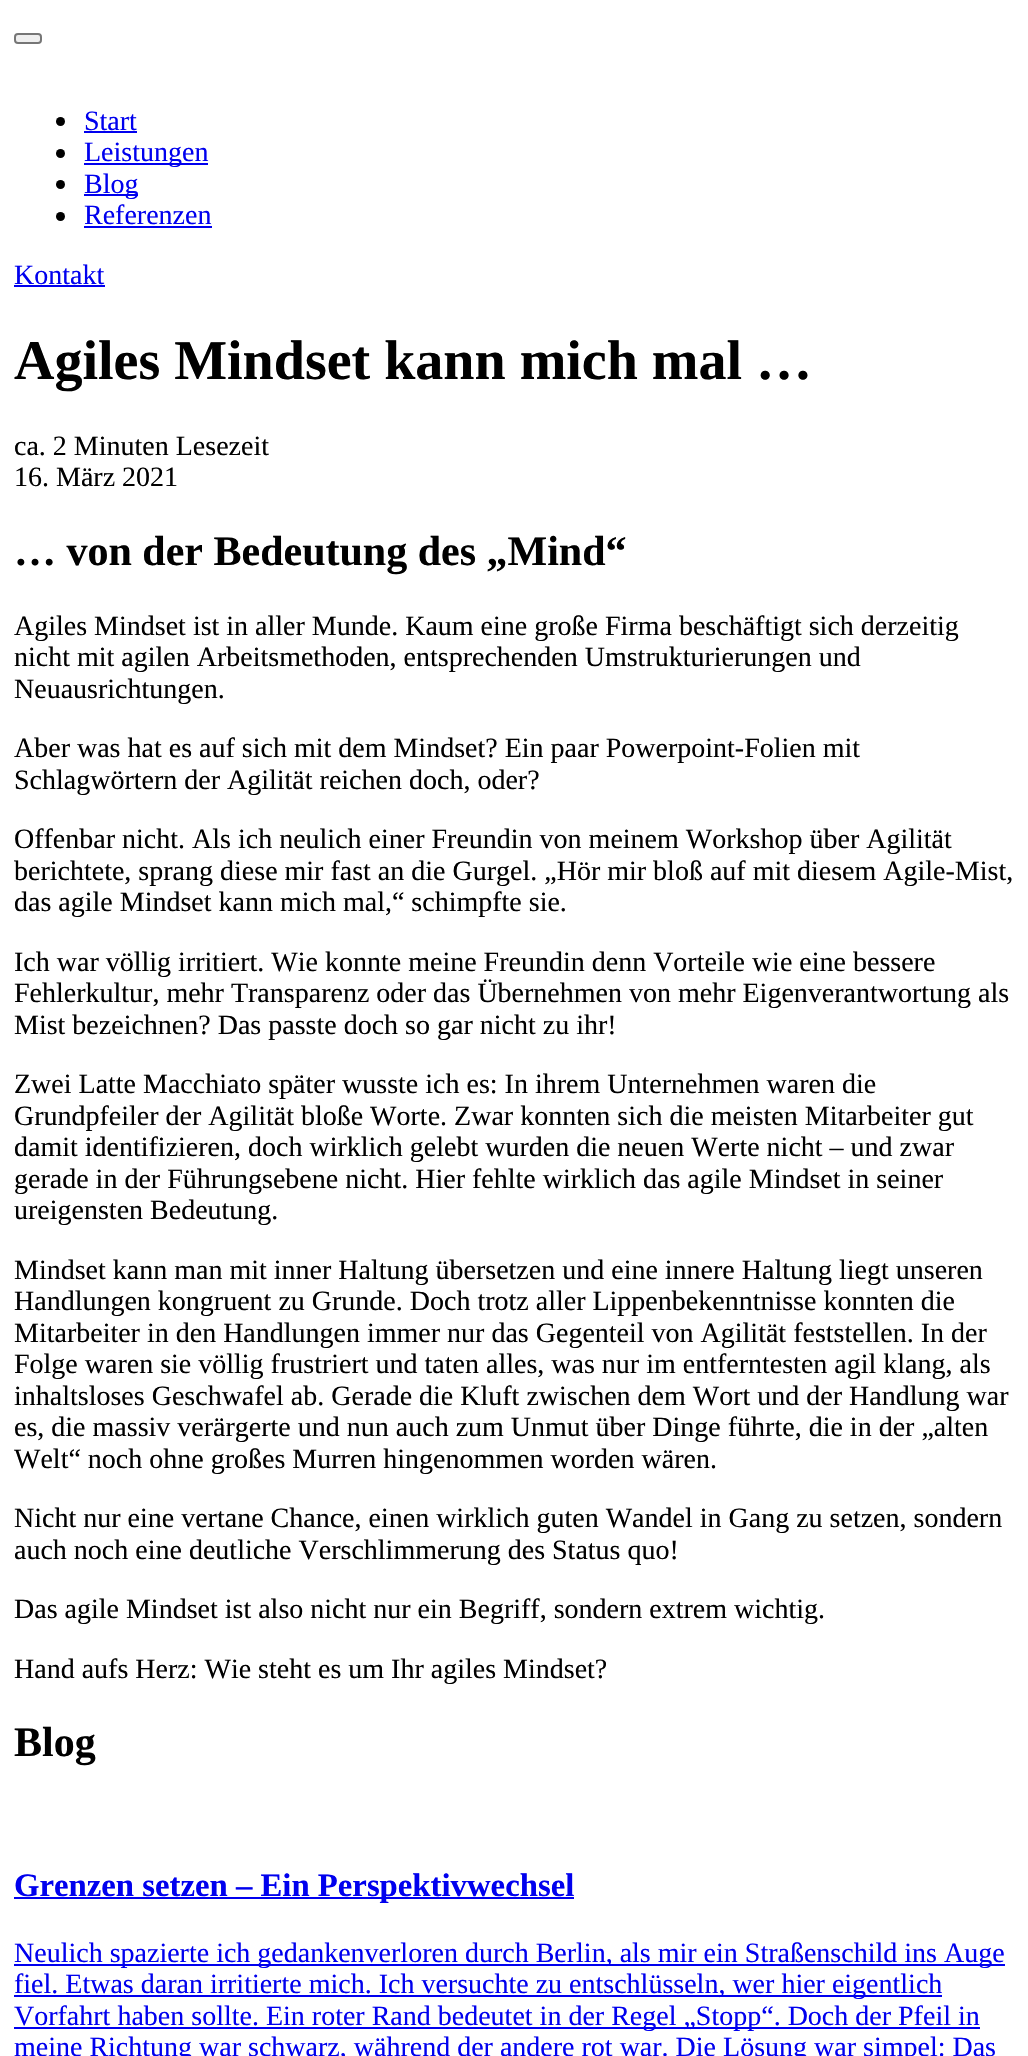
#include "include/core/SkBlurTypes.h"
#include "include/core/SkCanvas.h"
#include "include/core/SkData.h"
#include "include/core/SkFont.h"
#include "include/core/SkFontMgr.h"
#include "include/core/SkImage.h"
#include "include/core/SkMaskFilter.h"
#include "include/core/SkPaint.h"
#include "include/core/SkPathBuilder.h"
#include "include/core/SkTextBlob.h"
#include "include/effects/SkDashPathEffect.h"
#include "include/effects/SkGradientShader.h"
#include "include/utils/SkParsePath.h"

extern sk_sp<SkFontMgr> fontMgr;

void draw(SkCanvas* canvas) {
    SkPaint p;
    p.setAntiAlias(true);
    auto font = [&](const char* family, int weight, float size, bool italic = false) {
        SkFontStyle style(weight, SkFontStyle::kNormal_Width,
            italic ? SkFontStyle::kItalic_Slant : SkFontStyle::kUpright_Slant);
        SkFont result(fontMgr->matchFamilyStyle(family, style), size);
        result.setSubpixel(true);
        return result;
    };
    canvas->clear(0xFFFFFFFF);
    p.setColor(0xFFEFEFEF);
    canvas->drawRoundRect(SkRect::MakeLTRB(15, 34, 41, 43), 3, 3, p);
    p.setStyle(SkPaint::kStroke_Style);
    p.setStrokeWidth(2);
    p.setColor(0xFF767676);
    canvas->drawRoundRect(SkRect::MakeLTRB(15, 34, 41, 43), 3, 3, p);
    p.setStyle(SkPaint::kFill_Style);
    p.setColor(0xFF000000);
    canvas->drawCircle(60.5f, 121.5f, 4.5f, p);
    auto font1 = font("Liberation Serif", 400, 28);
    p.setColor(0xFF0000EE);
    canvas->drawString("Start", 84, 130, font1, p);
    canvas->drawRect(SkRect::MakeLTRB(84, 131, 137, 133), p);
    p.setColor(0xFF000000);
    canvas->drawCircle(60.5f, 153.5f, 4.5f, p);
    p.setColor(0xFF0000EE);
    canvas->drawRect(SkRect::MakeLTRB(84, 163, 208, 165), p);
    canvas->drawString("Leistungen", 84, 161, font1, p);
    p.setColor(0xFF000000);
    canvas->drawCircle(60.5f, 184.5f, 4.5f, p);
    p.setColor(0xFF0000EE);
    canvas->drawRect(SkRect::MakeLTRB(84, 194, 138, 196), p);
    canvas->drawString("Blog", 84, 193, font1, p);
    p.setColor(0xFF000000);
    canvas->drawCircle(60.5f, 216.5f, 4.5f, p);
    p.setColor(0xFF0000EE);
    canvas->drawString("Referenzen", 84, 224, font1, p);
    canvas->drawRect(SkRect::MakeLTRB(84, 226, 212, 228), p);
    canvas->drawString("Kontakt", 14, 284, font1, p);
    canvas->drawRect(SkRect::MakeLTRB(14, 285, 105, 287), p);
    auto font2 = font("Liberation Serif", 700, 56);
    p.setColor(0xFF000000);
    canvas->drawString("Agiles Mindset kann mich mal …", 14, 379, font2, p);
    canvas->drawString("ca. 2 Minuten Lesezeit", 14, 455, font1, p);
    canvas->drawString("16. März 2021", 14, 486, font1, p);
    auto font3 = font("Liberation Serif", 700, 42);
    canvas->drawString("… von der Bedeutung des „Mind“", 14, 565, font3, p);
    {
        const struct { const char* s; float x, y; } items[] = {
            {"Agiles Mindset ist in aller Munde. Kaum eine große Firma beschäftigt sich derzeitig", 14, 635},
            {"nicht mit agilen Arbeitsmethoden, entsprechenden Umstrukturierungen und", 14, 666},
            {"Neuausrichtungen.", 14, 698},
            {"Aber was hat es auf sich mit dem Mindset? Ein paar Powerpoint-Folien mit", 14, 757},
            {"Schlagwörtern der Agilität reichen doch, oder?", 14, 789},
            {"Offenbar nicht. Als ich neulich einer Freundin von meinem Workshop über Agilität", 14, 848},
            {"berichtete, sprang diese mir fast an die Gurgel. „Hör mir bloß auf mit diesem Agile-Mist,", 14, 880},
            {"das agile Mindset kann mich mal,“ schimpfte sie.", 14, 911},
            {"Ich war völlig irritiert. Wie konnte meine Freundin denn Vorteile wie eine bessere", 14, 971},
            {"Fehlerkultur, mehr Transparenz oder das Übernehmen von mehr Eigenverantwortung als", 14, 1002},
            {"Mist bezeichnen? Das passte doch so gar nicht zu ihr!", 14, 1034},
            {"Zwei Latte Macchiato später wusste ich es: In ihrem Unternehmen waren die", 14, 1093},
            {"Grundpfeiler der Agilität bloße Worte. Zwar konnten sich die meisten Mitarbeiter gut", 14, 1125},
            {"damit identifizieren, doch wirklich gelebt wurden die neuen Werte nicht – und zwar", 14, 1156},
            {"gerade in der Führungsebene nicht. Hier fehlte wirklich das agile Mindset in seiner", 14, 1188},
            {"ureigensten Bedeutung.", 14, 1219},
            {"Mindset kann man mit inner Haltung übersetzen und eine innere Haltung liegt unseren", 14, 1279},
            {"Handlungen kongruent zu Grunde. Doch trotz aller Lippenbekenntnisse konnten die", 14, 1310},
            {"Mitarbeiter in den Handlungen immer nur das Gegenteil von Agilität feststellen. In der", 14, 1342},
            {"Folge waren sie völlig frustriert und taten alles, was nur im entferntesten agil klang, als", 14, 1373},
            {"inhaltsloses Geschwafel ab. Gerade die Kluft zwischen dem Wort und der Handlung war", 14, 1405},
            {"es, die massiv verärgerte und nun auch zum Unmut über Dinge führte, die in der „alten", 14, 1436},
            {"Welt“ noch ohne großes Murren hingenommen worden wären.", 14, 1468},
            {"Nicht nur eine vertane Chance, einen wirklich guten Wandel in Gang zu setzen, sondern", 14, 1527},
            {"auch noch eine deutliche Verschlimmerung des Status quo!", 14, 1559},
            {"Das agile Mindset ist also nicht nur ein Begriff, sondern extrem wichtig.", 14, 1618},
            {"Hand aufs Herz: Wie steht es um Ihr agiles Mindset?", 14, 1678},
        };
        for (auto [s, x, y] : items) {
            canvas->drawString(s, x, y, font1, p);
        }
    }
    canvas->drawString("Blog", 14, 1756, font3, p);
    p.setColor(0xFF0000EE);
    canvas->drawRect(SkRect::MakeLTRB(14, 1897, 574, 1899), p);
    auto font4 = font("Liberation Serif", 700, 32.75f);
    canvas->drawString("Grenzen setzen – Ein Perspektivwechsel", 14, 1896, font4, p);
    canvas->drawRect(SkRect::MakeLTRB(14, 1964, 1005, 1966), p);
    canvas->drawString("Neulich spazierte ich gedankenverloren durch Berlin, als mir ein Straßenschild ins Auge", 14, 1962, font1, p);
    canvas->drawRect(SkRect::MakeLTRB(14, 1995, 942, 1997), p);
    canvas->drawString("fiel. Etwas daran irritierte mich. Ich versuchte zu entschlüsseln, wer hier eigentlich", 14, 1993, font1, p);
    canvas->drawRect(SkRect::MakeLTRB(14, 2027, 980, 2029), p);
    canvas->drawString("Vorfahrt haben sollte. Ein roter Rand bedeutet in der Regel „Stopp“. Doch der Pfeil in", 14, 2025, font1, p);
    canvas->drawString("meine Richtung war schwarz, während der andere rot war. Die Lösung war simpel: Das", 14, 2056, font1, p);
}
